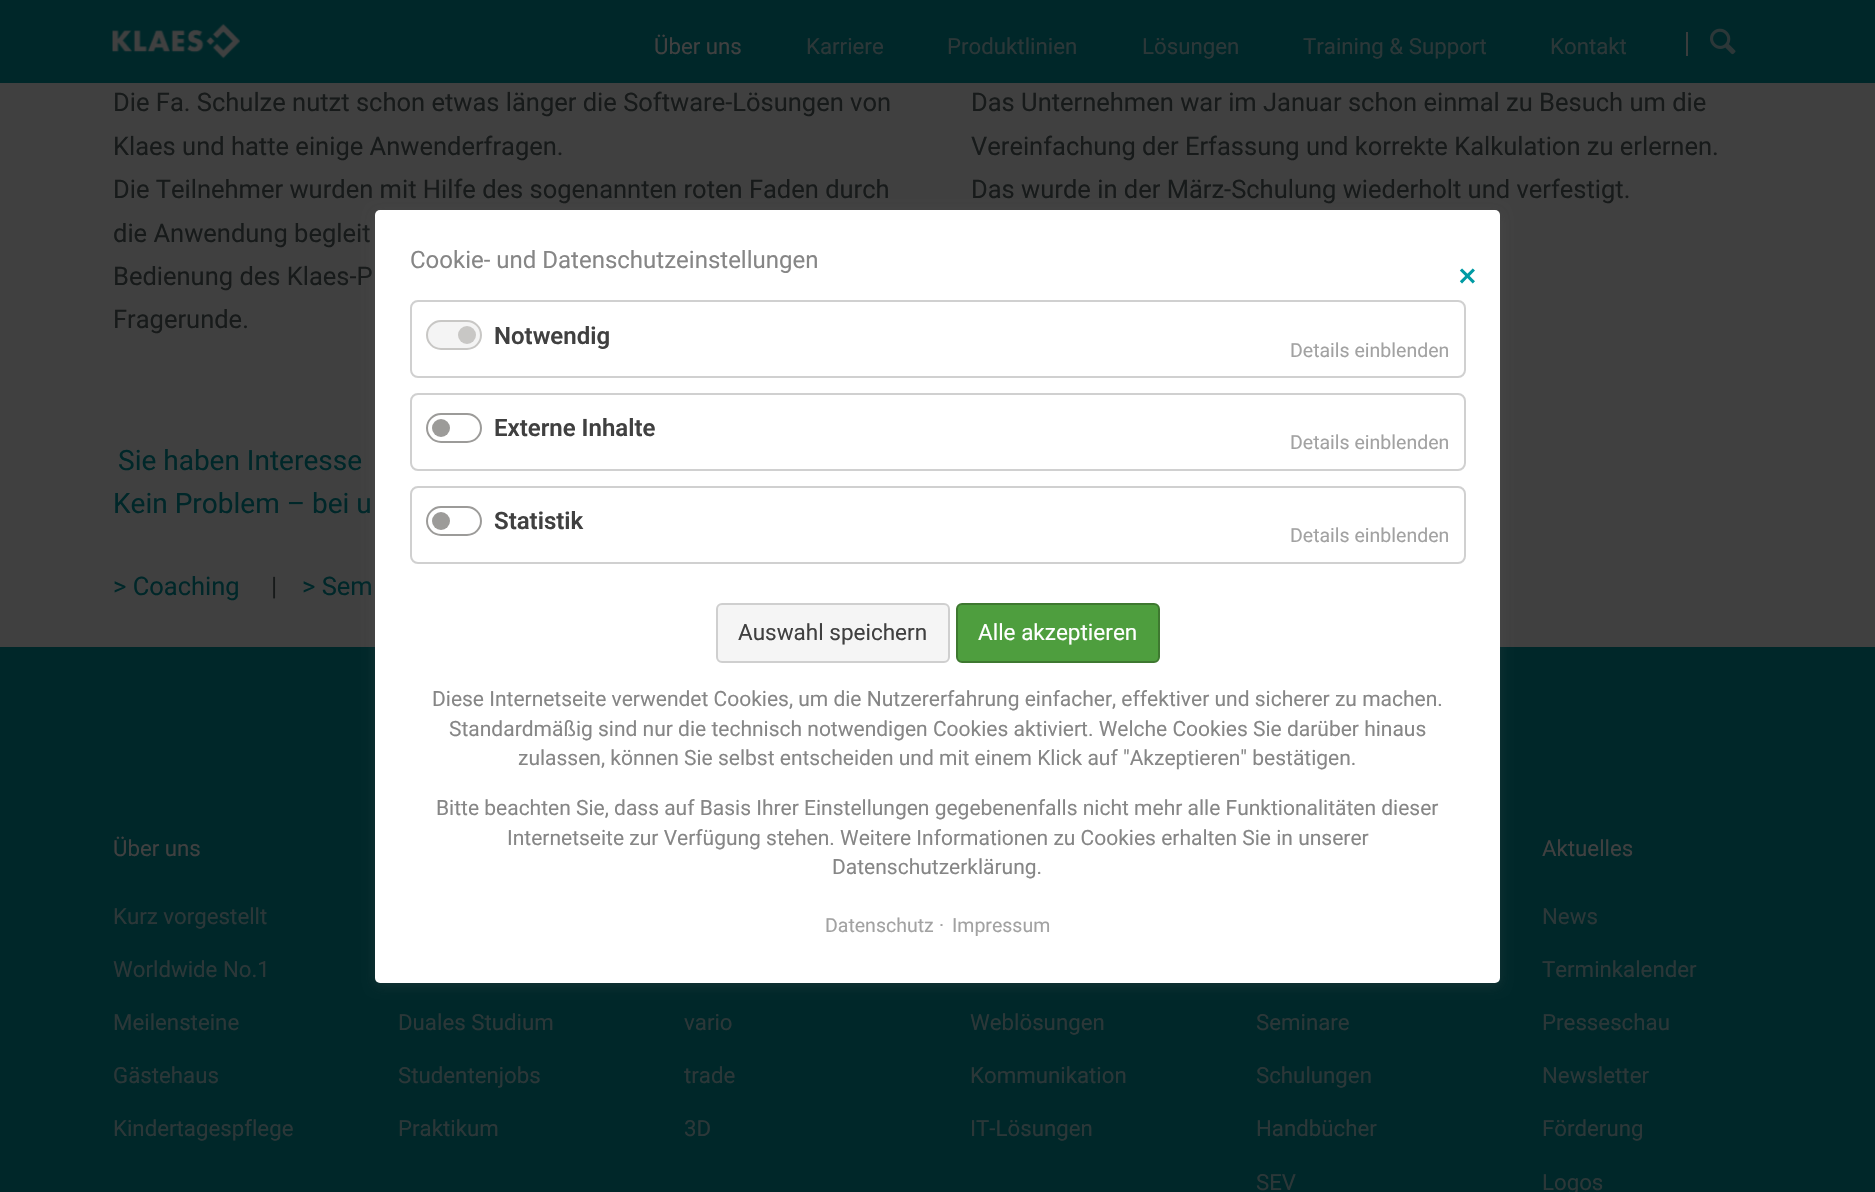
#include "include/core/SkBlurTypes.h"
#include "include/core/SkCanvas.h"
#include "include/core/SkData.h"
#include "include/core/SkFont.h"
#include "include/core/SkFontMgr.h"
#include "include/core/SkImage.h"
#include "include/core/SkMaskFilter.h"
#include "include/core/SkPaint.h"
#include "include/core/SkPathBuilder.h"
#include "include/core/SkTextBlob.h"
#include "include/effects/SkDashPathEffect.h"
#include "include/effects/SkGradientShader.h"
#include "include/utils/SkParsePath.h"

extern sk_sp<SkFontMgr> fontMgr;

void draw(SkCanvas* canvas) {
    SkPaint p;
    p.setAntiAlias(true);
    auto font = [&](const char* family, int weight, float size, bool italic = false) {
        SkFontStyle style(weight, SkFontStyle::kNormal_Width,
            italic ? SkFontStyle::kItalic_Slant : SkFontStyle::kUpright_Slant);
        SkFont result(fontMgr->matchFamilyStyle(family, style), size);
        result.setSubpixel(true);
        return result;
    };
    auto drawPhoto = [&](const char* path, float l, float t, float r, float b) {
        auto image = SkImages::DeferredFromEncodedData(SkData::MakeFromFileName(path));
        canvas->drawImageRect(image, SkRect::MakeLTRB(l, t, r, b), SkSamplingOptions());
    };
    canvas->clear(0xFF404040);
    p.setColor(0xFF002729);
    canvas->drawRect(SkRect::MakeLTRB(0, 0, 1875, 83), p);
    drawPhoto("media/1.png", 112, 23, 240, 59);
    auto font1 = font("Roboto", 400, 22.25f);
    p.setColor(0xFF404040);
    canvas->drawString("Über uns", 654, 54, font1, p);
    p.setColor(0xFF2C3738);
    {
        const struct { const char* s; float x, y; } items[] = {
            {"Karriere", 806, 54},
            {"Produktlinien", 947, 54},
            {"Lösungen", 1142, 54},
            {"Training & Support", 1303, 54},
            {"Kontakt", 1550, 54},
        };
        for (auto [s, x, y] : items) {
            canvas->drawString(s, x, y, font1, p);
        }
    }
    p.setColor(0xFF3A3D3D);
    canvas->drawRect(SkRect::MakeLTRB(1686, 32, 1688, 56), p);
    drawPhoto("media/2.png", 1710, 28, 1736, 55);
    auto font2 = font("Roboto", 400, 25.5f);
    p.setColor(0xFF171A1A);
    {
        const struct { const char* s; float x, y; } items[] = {
            {"Die Fa. Schulze nutzt schon etwas länger die Software-Lösungen von", 113, 111},
            {"Klaes und hatte einige Anwenderfragen.", 113, 155},
            {"Die Teilnehmer wurden mit Hilfe des sogenannten roten Faden durch", 113, 198},
            {"die Anwendung begleit", 113, 242},
            {"Bedienung des Klaes-P", 113, 285},
            {"Fragerunde.", 113, 328},
            {"Das Unternehmen war im Januar schon einmal zu Besuch um die", 971, 111},
            {"Vereinfachung der Erfassung und korrekte Kalkulation zu erlernen.", 971, 155},
            {"Das wurde in der März-Schulung wiederholt und verfestigt.", 971, 198},
        };
        for (auto [s, x, y] : items) {
            canvas->drawString(s, x, y, font2, p);
        }
    }
    auto font3 = font("Roboto", 400, 28);
    p.setColor(0xFF002729);
    canvas->drawString("Sie haben Interesse", 118, 470, font3, p);
    canvas->drawString("Kein Problem – bei u", 113, 513, font3, p);
    canvas->drawString("> Coaching", 113, 595, font2, p);
    p.setColor(0xFF171A1A);
    canvas->drawString("|", 271, 595, font2, p);
    p.setColor(0xFF002729);
    canvas->drawString("> Sem", 302, 595, font2, p);
    canvas->drawRect(SkRect::MakeLTRB(0, 647, 1875, 1192), p);
    p.setColor(0xFF404040);
    canvas->drawString("Über uns", 113, 856, font1, p);
    p.setColor(0xFF2C3738);
    {
        const struct { const char* s; float x, y; } items[] = {
            {"Kurz vorgestellt", 113, 924},
            {"Worldwide No.1", 113, 977},
            {"Meilensteine", 113, 1030},
            {"Gästehaus", 113, 1083},
            {"Kindertagespflege", 113, 1136},
            {"Duales Studium", 398, 1030},
            {"Studentenjobs", 398, 1083},
            {"Praktikum", 398, 1136},
            {"vario", 684, 1030},
            {"trade", 684, 1083},
            {"3D", 684, 1136},
            {"Weblösungen", 970, 1030},
            {"Kommunikation", 970, 1083},
            {"IT-Lösungen", 970, 1136},
            {"Seminare", 1256, 1030},
            {"Schulungen", 1256, 1083},
            {"Handbücher", 1256, 1136},
            {"SEV", 1256, 1190},
        };
        for (auto [s, x, y] : items) {
            canvas->drawString(s, x, y, font1, p);
        }
    }
    p.setColor(0xFF404040);
    canvas->drawString("Aktuelles", 1542, 856, font1, p);
    p.setColor(0xFF2C3738);
    {
        const struct { const char* s; float x, y; } items[] = {
            {"News", 1542, 924},
            {"Terminkalender", 1542, 977},
            {"Presseschau", 1542, 1030},
            {"Newsletter", 1542, 1083},
            {"Förderung", 1542, 1136},
            {"Logos", 1542, 1190},
        };
        for (auto [s, x, y] : items) {
            canvas->drawString(s, x, y, font1, p);
        }
    }
    p.setColor(0x33636363);
    p.setMaskFilter(SkMaskFilter::MakeBlur(kNormal_SkBlurStyle, 6));
    canvas->drawRoundRect(SkRect::MakeLTRB(375, 213, 1500, 986), 5, 5, p);
    p.setMaskFilter(nullptr);
    p.setColor(0xFFFFFFFF);
    canvas->drawRoundRect(SkRect::MakeLTRB(375, 210, 1500, 983), 5, 5, p);
    auto font4 = font("Roboto", 400, 24);
    p.setColor(0xFF868686);
    canvas->drawString("Cookie- und Datenschutzeinstellungen", 410, 268, font4, p);
    auto font5 = font("DejaVu Sans", 700, 24);
    p.setColor(0xFF009BA4);
    canvas->drawString("✕", 1457, 285, font5, p);
    p.setStyle(SkPaint::kStroke_Style);
    p.setStrokeWidth(2);
    p.setColor(0xFFD0D0D0);
    canvas->drawRoundRect(SkRect::MakeLTRB(411, 301, 1465, 377), 7, 7, p);
    p.setStyle(SkPaint::kFill_Style);
    p.setColor(0xFFF4F4F4);
    canvas->drawRoundRect(SkRect::MakeLTRB(427, 321, 481, 349), 14, 14, p);
    p.setStyle(SkPaint::kStroke_Style);
    p.setColor(0xFFC8C7C5);
    canvas->drawRoundRect(SkRect::MakeLTRB(427, 321, 481, 349), 14, 14, p);
    p.setStyle(SkPaint::kFill_Style);
    canvas->drawCircle(467, 335, 9, p);
    auto font6 = font("Roboto", 600, 24);
    p.setColor(0xFF404040);
    canvas->drawString("Notwendig", 494, 344, font6, p);
    auto font7 = font("Roboto", 400, 19.5f);
    p.setColor(0xFFA2A2A2);
    canvas->drawString("Details einblenden", 1290, 357, font7, p);
    p.setStyle(SkPaint::kStroke_Style);
    p.setColor(0xFFD0D0D0);
    canvas->drawRoundRect(SkRect::MakeLTRB(411, 394, 1465, 470), 7, 7, p);
    p.setColor(0xFF9C9B99);
    canvas->drawRoundRect(SkRect::MakeLTRB(427, 414, 481, 442), 14, 14, p);
    p.setStyle(SkPaint::kFill_Style);
    p.setColor(0xFF404040);
    canvas->drawString("Externe Inhalte", 494, 436, font6, p);
    p.setColor(0xFF9C9B99);
    canvas->drawCircle(441, 428, 9, p);
    p.setColor(0xFFA2A2A2);
    canvas->drawString("Details einblenden", 1290, 449, font7, p);
    p.setStyle(SkPaint::kStroke_Style);
    p.setColor(0xFFD0D0D0);
    canvas->drawRoundRect(SkRect::MakeLTRB(411, 487, 1465, 563), 7, 7, p);
    p.setColor(0xFF9C9B99);
    canvas->drawRoundRect(SkRect::MakeLTRB(427, 507, 481, 535), 14, 14, p);
    p.setStyle(SkPaint::kFill_Style);
    p.setColor(0xFF404040);
    canvas->drawString("Statistik", 494, 529, font6, p);
    p.setColor(0xFF9C9B99);
    canvas->drawCircle(441, 521, 9, p);
    p.setColor(0xFFA2A2A2);
    canvas->drawString("Details einblenden", 1290, 542, font7, p);
    p.setColor(0xFFF5F5F5);
    canvas->drawRoundRect(SkRect::MakeLTRB(717, 604, 949, 662), 5, 5, p);
    p.setStyle(SkPaint::kStroke_Style);
    p.setColor(0xFFCFCFCF);
    canvas->drawRoundRect(SkRect::MakeLTRB(717, 604, 949, 662), 5, 5, p);
    auto font8 = font("Roboto", 400, 22.5f);
    p.setStyle(SkPaint::kFill_Style);
    p.setColor(0xFF404040);
    canvas->drawString("Auswahl speichern", 738, 640, font8, p);
    p.setColor(0xFF4E9E3E);
    canvas->drawRoundRect(SkRect::MakeLTRB(957, 604, 1159, 662), 5, 5, p);
    p.setStyle(SkPaint::kStroke_Style);
    p.setColor(0xFF3E7830);
    canvas->drawRoundRect(SkRect::MakeLTRB(957, 604, 1159, 662), 5, 5, p);
    p.setStyle(SkPaint::kFill_Style);
    p.setColor(0xFFFFFFFF);
    canvas->drawString("Alle akzeptieren", 978, 640, font8, p);
    auto font9 = font("Roboto", 400, 21);
    p.setColor(0xFF868686);
    {
        const struct { const char* s; float x, y; } items[] = {
            {"Diese Internetseite verwendet Cookies, um die Nutzererfahrung einfacher, effektiver und sicherer zu machen.", 432, 706},
            {"Standardmäßig sind nur die technisch notwendigen Cookies aktiviert. Welche Cookies Sie darüber hinaus", 449, 736},
            {"zulassen, können Sie selbst entscheiden und mit einem Klick auf \"Akzeptieren\" bestätigen.", 518, 765},
            {"Bitte beachten Sie, dass auf Basis Ihrer Einstellungen gegebenenfalls nicht mehr alle Funktionalitäten dieser", 436, 815},
            {"Internetseite zur Verfügung stehen. Weitere Informationen zu Cookies erhalten Sie in unserer", 507, 845},
            {"Datenschutzerklärung.", 832, 874},
        };
        for (auto [s, x, y] : items) {
            canvas->drawString(s, x, y, font9, p);
        }
    }
    p.setColor(0xFFA2A2A2);
    {
        const struct { const char* s; float x, y; } items[] = {
            {"Datenschutz", 825, 932},
            {"·", 939, 932},
            {"Impressum", 952, 932},
        };
        for (auto [s, x, y] : items) {
            canvas->drawString(s, x, y, font7, p);
        }
    }
}
